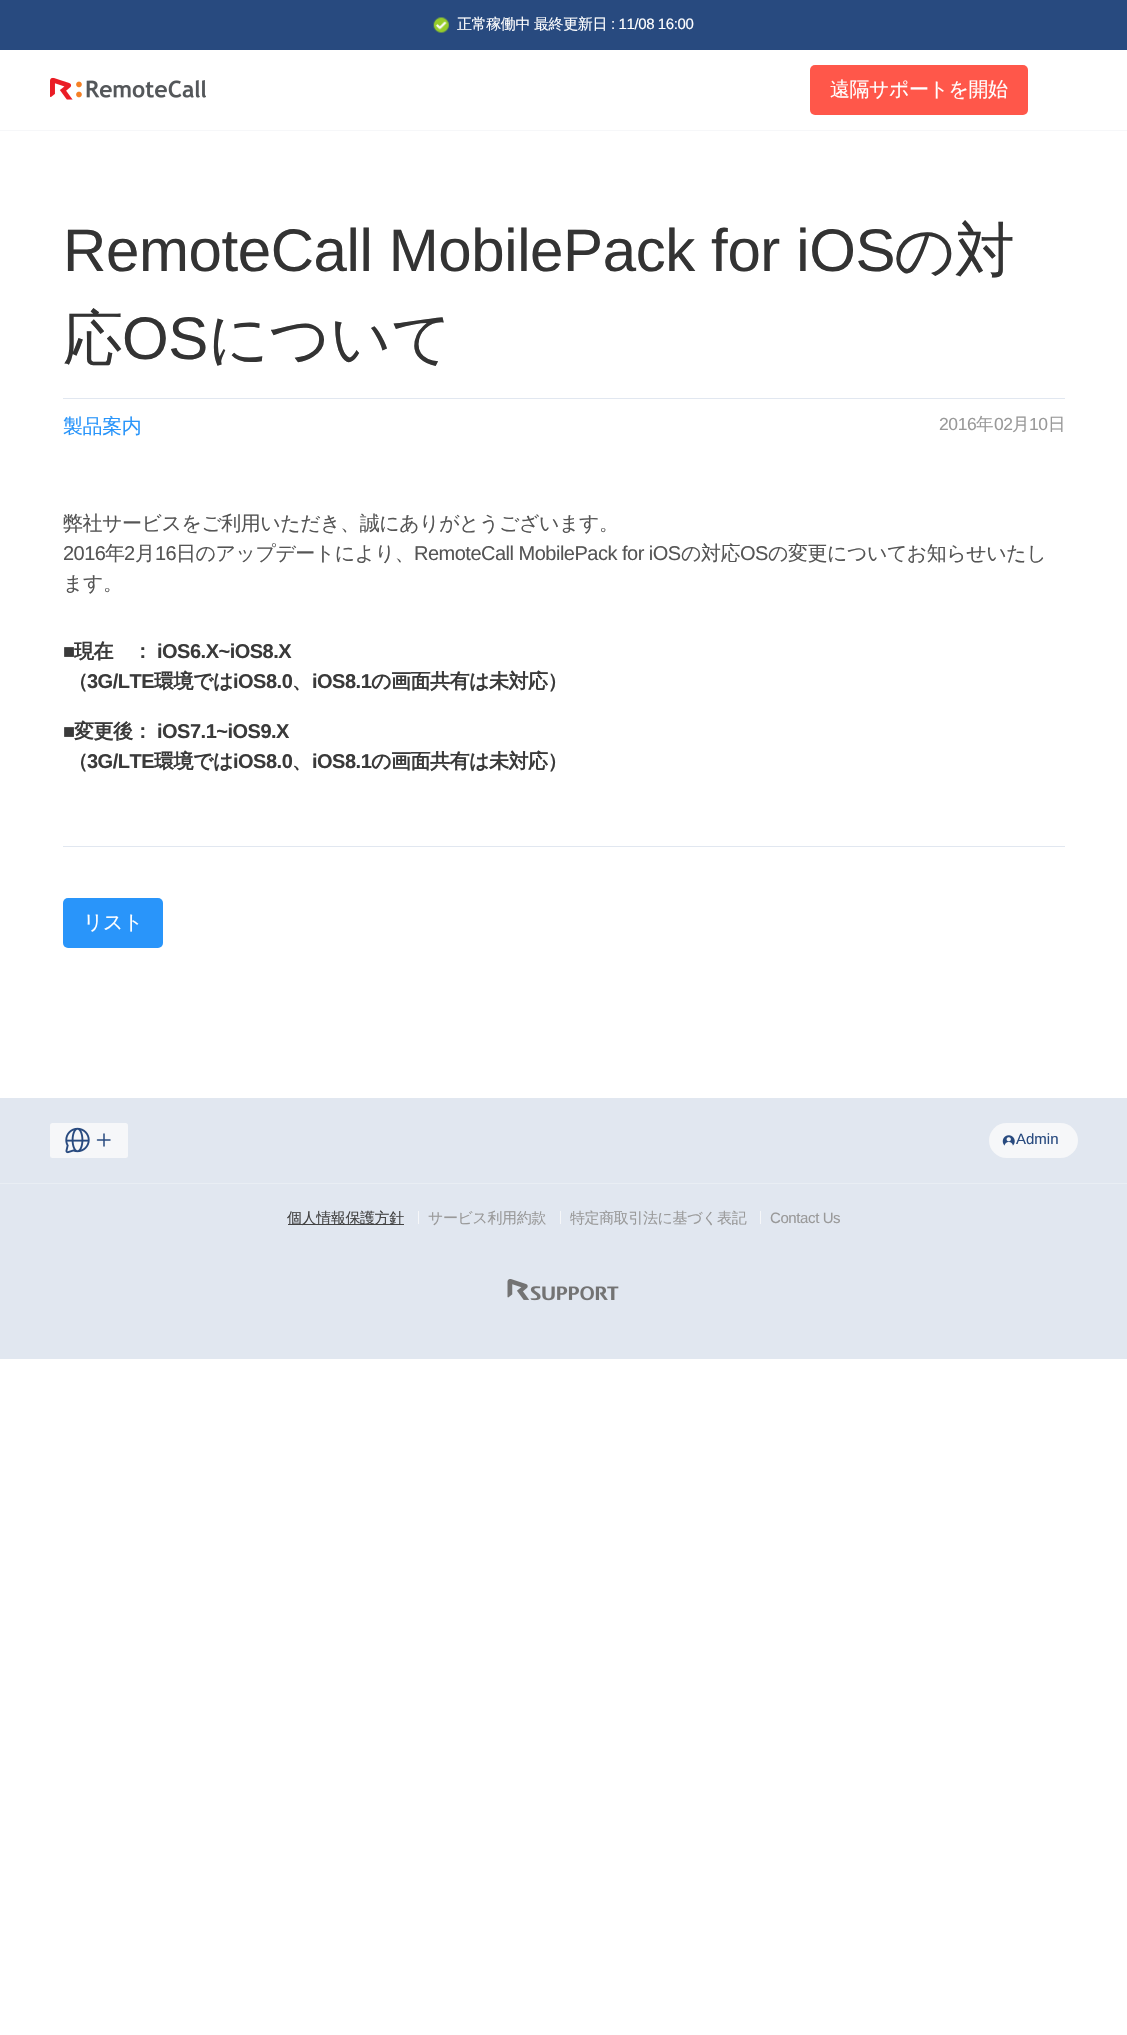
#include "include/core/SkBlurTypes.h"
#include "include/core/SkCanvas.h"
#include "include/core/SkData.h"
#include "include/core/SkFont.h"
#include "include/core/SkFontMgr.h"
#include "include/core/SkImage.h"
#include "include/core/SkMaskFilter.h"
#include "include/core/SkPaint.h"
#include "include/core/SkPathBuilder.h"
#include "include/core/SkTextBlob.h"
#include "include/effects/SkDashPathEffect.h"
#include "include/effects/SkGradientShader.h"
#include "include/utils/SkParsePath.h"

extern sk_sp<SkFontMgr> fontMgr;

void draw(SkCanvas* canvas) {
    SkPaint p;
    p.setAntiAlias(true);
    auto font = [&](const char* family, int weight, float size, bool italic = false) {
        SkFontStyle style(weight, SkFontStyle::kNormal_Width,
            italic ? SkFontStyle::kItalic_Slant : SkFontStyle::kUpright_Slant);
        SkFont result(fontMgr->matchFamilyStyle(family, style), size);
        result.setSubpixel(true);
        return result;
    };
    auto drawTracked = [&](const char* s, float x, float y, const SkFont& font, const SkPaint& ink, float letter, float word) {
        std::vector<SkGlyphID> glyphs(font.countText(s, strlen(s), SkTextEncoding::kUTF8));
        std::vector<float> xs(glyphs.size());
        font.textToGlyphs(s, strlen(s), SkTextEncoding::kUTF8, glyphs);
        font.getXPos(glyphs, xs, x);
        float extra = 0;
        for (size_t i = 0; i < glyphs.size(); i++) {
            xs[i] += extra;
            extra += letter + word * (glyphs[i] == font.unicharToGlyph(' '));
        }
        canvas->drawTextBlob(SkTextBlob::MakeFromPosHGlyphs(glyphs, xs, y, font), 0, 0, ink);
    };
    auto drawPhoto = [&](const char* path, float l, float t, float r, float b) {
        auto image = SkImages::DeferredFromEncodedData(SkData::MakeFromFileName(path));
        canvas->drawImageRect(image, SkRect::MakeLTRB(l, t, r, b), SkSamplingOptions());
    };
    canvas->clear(0xFFFFFFFF);
    p.setColor(0xFF284A7F);
    canvas->drawRect(SkRect::MakeLTRB(0, 0, 1127, 50), p);
    drawPhoto("media/1.png", 433, 17, 449, 33);
    auto font1 = font("WenQuanYi Zen Hei", 500, 15);
    p.setColor(0xFFFFFFFF);
    drawTracked("正常稼働中", 457, 29, font1, p, -0.4f, 0);
    drawTracked("最終更新日", 534, 29, font1, p, -0.4f, 0);
    auto font2 = font("Liberation Sans", 400, 15);
    drawTracked(": 11/08 16:00", 611, 29, font2, p, -0.4f, 0);
    p.setColor(0xFFF6F7F9);
    canvas->drawRect(SkRect::MakeLTRB(0, 130, 1127, 131), p);
    drawPhoto("media/2.png", 50, 77, 206, 100);
    p.setColor(0xFFFF574A);
    canvas->drawRoundRect(SkRect::MakeLTRB(810, 65, 1028, 115), 5, 5, p);
    auto font3 = font("WenQuanYi Zen Hei", 500, 20);
    p.setColor(0xFFFFFFFF);
    drawTracked("遠隔サポートを開始", 830, 96, font3, p, -0.5f, 0);
    p.setColor(0xFFE1E7F0);
    canvas->drawRect(SkRect::MakeLTRB(63, 398, 1065, 399), p);
    auto font4 = font("Liberation Sans", 400, 60);
    p.setColor(0xFF333333);
    drawTracked("RemoteCall MobilePack for iOS", 63, 271, font4, p, -0.4f, 0);
    auto font5 = font("WenQuanYi Zen Hei", 500, 60);
    drawTracked("の対", 894, 271, font5, p, -0.4f, 0);
    drawTracked("応", 63, 359, font5, p, -0.4f, 0);
    drawTracked("OS", 122, 359, font4, p, -0.4f, 0);
    drawTracked("について", 208, 359, font5, p, -0.4f, 0);
    p.setColor(0xFF2995FA);
    drawTracked("製品案内", 63, 433, font3, p, -0.4f, 0);
    auto font6 = font("Liberation Sans", 400, 17.5f);
    p.setColor(0xFF999999);
    drawTracked("2016", 939, 430, font6, p, -0.4f, 0);
    auto font7 = font("WenQuanYi Zen Hei", 500, 17.5f);
    drawTracked("年", 976, 430, font7, p, -0.4f, 0);
    drawTracked("02", 994, 430, font6, p, -0.4f, 0);
    drawTracked("月", 1012, 430, font7, p, -0.4f, 0);
    drawTracked("10", 1029, 430, font6, p, -0.4f, 0);
    drawTracked("日", 1048, 430, font7, p, -0.4f, 0);
    p.setColor(0xFF555555);
    drawTracked("弊社サービスをご利用いただき、誠にありがとうございます。", 63, 530, font3, p, -0.5f, 0);
    auto font8 = font("Liberation Sans", 400, 20);
    drawTracked("2016", 63, 560, font8, p, -0.5f, 0);
    drawTracked("年", 105, 560, font3, p, -0.5f, 0);
    drawTracked("2", 124, 560, font8, p, -0.5f, 0);
    drawTracked("月", 135, 560, font3, p, -0.5f, 0);
    drawTracked("16", 155, 560, font8, p, -0.5f, 0);
    drawTracked("日のアップデートにより、", 176, 560, font3, p, -0.5f, 0);
    drawTracked("RemoteCall MobilePack for iOS", 414, 560, font8, p, -0.5f, 0);
    drawTracked("の対応", 681, 560, font3, p, -0.5f, 0);
    drawTracked("OS", 740, 560, font8, p, -0.5f, 0);
    drawTracked("の変更についてお知らせいたし", 768, 560, font3, p, -0.5f, 0);
    drawTracked("ます。", 63, 590, font3, p, -0.5f, 0);
    auto font9 = font("Liberation Sans", 700, 20);
    p.setColor(0xFF3A3A3A);
    drawTracked("■", 63, 658, font9, p, -0.5f, 0);
    auto font10 = font("WenQuanYi Zen Hei", 700, 20);
    drawTracked("現在　：", 74, 658, font10, p, -0.5f, 0);
    drawTracked("iOS6.X~iOS8.X", 157, 658, font9, p, -0.5f, 0);
    drawTracked("（", 68, 688, font10, p, -0.5f, 0);
    drawTracked("3G/LTE", 87, 688, font9, p, -0.5f, 0);
    drawTracked("環境では", 154, 688, font10, p, -0.5f, 0);
    drawTracked("iOS8.0", 233, 688, font9, p, -0.5f, 0);
    drawTracked("、", 292, 688, font10, p, -0.5f, 0);
    drawTracked("iOS8.1", 312, 688, font9, p, -0.5f, 0);
    drawTracked("の画面共有は未対応）", 371, 688, font10, p, -0.5f, 0);
    drawTracked("■", 63, 738, font9, p, -0.5f, 0);
    drawTracked("変更後：", 74, 738, font10, p, -0.5f, 0);
    drawTracked("iOS7.1~iOS9.X", 157, 738, font9, p, -0.5f, 0);
    drawTracked("（", 68, 768, font10, p, -0.5f, 0);
    drawTracked("3G/LTE", 87, 768, font9, p, -0.5f, 0);
    drawTracked("環境では", 154, 768, font10, p, -0.5f, 0);
    drawTracked("iOS8.0", 233, 768, font9, p, -0.5f, 0);
    drawTracked("、", 292, 768, font10, p, -0.5f, 0);
    drawTracked("iOS8.1", 312, 768, font9, p, -0.5f, 0);
    drawTracked("の画面共有は未対応）", 371, 768, font10, p, -0.5f, 0);
    p.setColor(0xFFE1E7F0);
    canvas->drawRect(SkRect::MakeLTRB(63, 846, 1065, 847), p);
    p.setColor(0xFF2995FA);
    canvas->drawRoundRect(SkRect::MakeLTRB(63, 898, 163, 948), 5, 5, p);
    p.setColor(0xFFFFFFFF);
    drawTracked("リスト", 83, 929, font3, p, -0.5f, 0);
    p.setColor(0xFFE1E7F0);
    canvas->drawRect(SkRect::MakeLTRB(0, 1098, 1127, 1359), p);
    p.setColor(0xFFF6F7F9);
    canvas->drawRoundRect(SkRect::MakeLTRB(50, 1123, 128, 1158), 2.5f, 2.5f, p);
    drawPhoto("media/3.png", 65, 1127, 90, 1154);
    p.setStyle(SkPaint::kStroke_Style);
    p.setStrokeWidth(1.5f);
    p.setStrokeCap(SkPaint::kRound_Cap);
    p.setColor(0xFF284A7F);
    canvas->drawPath(SkPathBuilder().moveTo(97.5f, 1140).lineTo(110, 1140).moveTo(104, 1134).lineTo(104, 1146).detach(), p);
    p.setStyle(SkPaint::kFill_Style);
    p.setColor(0xFFF6F7F9);
    canvas->drawRoundRect(SkRect::MakeLTRB(989, 1123, 1078, 1158), 17.5f, 17.5f, p);
    drawPhoto("media/4.png", 1002, 1135, 1015, 1146);
    p.setColor(0xFF284A7F);
    canvas->drawString("Admin", 1016, 1144, font2, p);
    p.setColor(0xFFE9EEF4);
    canvas->drawRect(SkRect::MakeLTRB(0, 1183, 1127, 1184), p);
    p.setColor(0xFF434343);
    canvas->drawRect(SkRect::MakeLTRB(288, 1224, 404, 1225), p);
    drawTracked("個人情報保護方針", 287, 1223, font1, p, -0.4f, 0);
    p.setColor(0xFFF6F7F9);
    canvas->drawRect(SkRect::MakeLTRB(418, 1211, 419, 1224), p);
    p.setColor(0xFF999999);
    drawTracked("サービス利用約款", 428, 1223, font1, p, -0.4f, 0);
    p.setColor(0xFFF6F7F9);
    canvas->drawRect(SkRect::MakeLTRB(560, 1211, 561, 1224), p);
    p.setColor(0xFF999999);
    drawTracked("特定商取引法に基づく表記", 570, 1223, font1, p, -0.4f, 0);
    p.setColor(0xFFF6F7F9);
    canvas->drawRect(SkRect::MakeLTRB(760, 1211, 761, 1224), p);
    p.setColor(0xFF999999);
    drawTracked("Contact Us", 770, 1223, font2, p, -0.4f, 0);
    drawPhoto("media/5.png", 507, 1279, 619, 1301);
}
